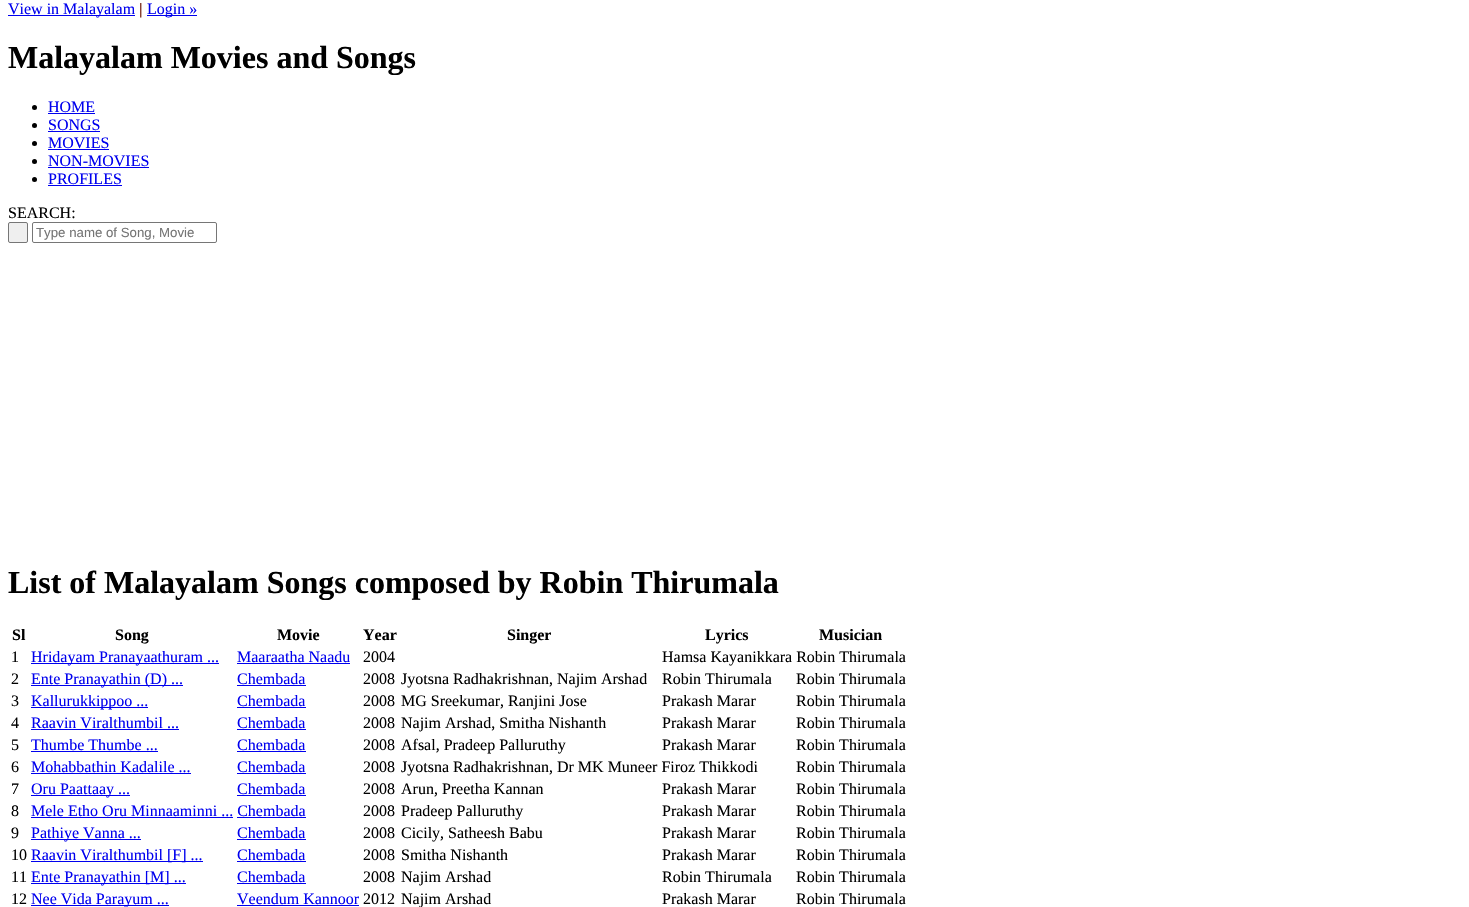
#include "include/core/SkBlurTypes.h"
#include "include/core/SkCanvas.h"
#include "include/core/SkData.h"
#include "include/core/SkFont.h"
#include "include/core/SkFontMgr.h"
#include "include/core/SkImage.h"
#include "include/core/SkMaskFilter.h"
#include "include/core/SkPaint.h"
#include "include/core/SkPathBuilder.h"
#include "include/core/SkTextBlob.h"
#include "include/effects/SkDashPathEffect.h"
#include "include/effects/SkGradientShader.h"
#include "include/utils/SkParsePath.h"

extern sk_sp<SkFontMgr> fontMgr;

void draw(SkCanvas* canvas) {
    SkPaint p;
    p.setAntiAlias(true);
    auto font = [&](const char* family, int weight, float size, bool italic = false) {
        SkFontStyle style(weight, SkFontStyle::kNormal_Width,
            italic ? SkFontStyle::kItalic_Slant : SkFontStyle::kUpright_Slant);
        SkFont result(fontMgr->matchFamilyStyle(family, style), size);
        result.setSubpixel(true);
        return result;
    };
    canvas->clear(0xFFFFFFFF);
    p.setColor(0xFF0000EE);
    canvas->drawRect(SkRect::MakeLTRB(8, 15, 135, 16), p);
    auto font1 = font("Liberation Serif", 400, 16);
    canvas->drawString("View in Malayalam", 8, 14, font1, p);
    auto font2 = font("Liberation Serif", 700, 16);
    p.setColor(0xFF762311);
    canvas->drawString("|", 139, 14, font2, p);
    p.setColor(0xFF0000EE);
    canvas->drawRect(SkRect::MakeLTRB(147, 15, 197, 16), p);
    canvas->drawString("Login »", 147, 14, font1, p);
    auto font3 = font("Liberation Serif", 700, 32);
    p.setColor(0xFF000000);
    canvas->drawString("Malayalam Movies and Songs", 8, 68, font3, p);
    canvas->drawCircle(34.5f, 107.5f, 2.5f, p);
    p.setColor(0xFF0000EE);
    canvas->drawString("HOME", 48, 112, font1, p);
    canvas->drawRect(SkRect::MakeLTRB(48, 113, 95, 114), p);
    p.setColor(0xFF000000);
    canvas->drawCircle(34.5f, 125.5f, 2.5f, p);
    p.setColor(0xFF0000EE);
    canvas->drawString("SONGS", 48, 130, font1, p);
    canvas->drawRect(SkRect::MakeLTRB(48, 131, 100, 132), p);
    p.setColor(0xFF000000);
    canvas->drawCircle(34.5f, 143.5f, 2.5f, p);
    p.setColor(0xFF0000EE);
    canvas->drawString("MOVIES", 48, 148, font1, p);
    canvas->drawRect(SkRect::MakeLTRB(48, 149, 109, 150), p);
    p.setColor(0xFF000000);
    canvas->drawCircle(34.5f, 161.5f, 2.5f, p);
    p.setColor(0xFF0000EE);
    canvas->drawString("NON-MOVIES", 48, 166, font1, p);
    canvas->drawRect(SkRect::MakeLTRB(48, 167, 149, 168), p);
    p.setColor(0xFF000000);
    canvas->drawCircle(34.5f, 179.5f, 2.5f, p);
    p.setColor(0xFF0000EE);
    canvas->drawString("PROFILES", 48, 184, font1, p);
    canvas->drawRect(SkRect::MakeLTRB(48, 185, 122, 186), p);
    p.setColor(0xFF000000);
    canvas->drawString("SEARCH:", 8, 218, font1, p);
    p.setColor(0xFFEFEFEF);
    canvas->drawRoundRect(SkRect::MakeLTRB(8.5f, 222.5f, 27.5f, 242.5f), 1.5f, 1.5f, p);
    p.setStyle(SkPaint::kStroke_Style);
    p.setStrokeWidth(1);
    p.setColor(0xFF767676);
    canvas->drawRoundRect(SkRect::MakeLTRB(8.5f, 222.5f, 27.5f, 242.5f), 1.5f, 1.5f, p);
    canvas->drawRoundRect(SkRect::MakeLTRB(32.5f, 222.5f, 216.5f, 242.5f), 1.5f, 1.5f, p);
    auto font4 = font("Liberation Sans", 400, 13.25f);
    p.setStyle(SkPaint::kFill_Style);
    p.setColor(0xFF757575);
    canvas->drawString("Type name of Song, Movie", 36, 237, font4, p);
    p.setColor(0xFF000000);
    canvas->drawString("List of Malayalam Songs composed by Robin Thirumala", 8, 593, font3, p);
    {
        const struct { const char* s; float x, y; } items[] = {
            {"Sl", 12, 640},
            {"Song", 115, 640},
            {"Movie", 277, 640},
            {"Year", 363, 640},
            {"Singer", 507, 640},
            {"Lyrics", 705, 640},
            {"Musician", 819, 640},
        };
        for (auto [s, x, y] : items) {
            canvas->drawString(s, x, y, font2, p);
        }
    }
    canvas->drawString("1", 11, 662, font1, p);
    p.setColor(0xFF0000EE);
    canvas->drawRect(SkRect::MakeLTRB(31, 663, 219, 664), p);
    canvas->drawString("Hridayam Pranayaathuram ...", 31, 662, font1, p);
    canvas->drawString("Maaraatha Naadu", 237, 662, font1, p);
    canvas->drawRect(SkRect::MakeLTRB(237, 663, 350, 664), p);
    p.setColor(0xFF000000);
    {
        const struct { const char* s; float x, y; } items[] = {
            {"2004", 363, 662},
            {"Hamsa Kayanikkara Robin Thirumala", 662, 662},
            {"2", 11, 684},
        };
        for (auto [s, x, y] : items) {
            canvas->drawString(s, x, y, font1, p);
        }
    }
    p.setColor(0xFF0000EE);
    canvas->drawRect(SkRect::MakeLTRB(31, 685, 183, 686), p);
    canvas->drawString("Ente Pranayathin (D) ...", 31, 684, font1, p);
    canvas->drawString("Chembada", 237, 684, font1, p);
    canvas->drawRect(SkRect::MakeLTRB(237, 685, 306, 686), p);
    p.setColor(0xFF000000);
    {
        const struct { const char* s; float x, y; } items[] = {
            {"2008", 363, 684},
            {"Jyotsna Radhakrishnan, Najim Arshad", 401, 684},
            {"Robin Thirumala", 662, 684},
            {"Robin Thirumala", 796, 684},
            {"3", 11, 706},
        };
        for (auto [s, x, y] : items) {
            canvas->drawString(s, x, y, font1, p);
        }
    }
    p.setColor(0xFF0000EE);
    canvas->drawRect(SkRect::MakeLTRB(31, 707, 148, 708), p);
    canvas->drawString("Kallurukkippoo ...", 31, 706, font1, p);
    canvas->drawString("Chembada", 237, 706, font1, p);
    canvas->drawRect(SkRect::MakeLTRB(237, 707, 306, 708), p);
    p.setColor(0xFF000000);
    {
        const struct { const char* s; float x, y; } items[] = {
            {"2008", 363, 706},
            {"MG Sreekumar, Ranjini Jose", 401, 706},
            {"Prakash Marar", 662, 706},
            {"Robin Thirumala", 796, 706},
            {"4", 11, 728},
        };
        for (auto [s, x, y] : items) {
            canvas->drawString(s, x, y, font1, p);
        }
    }
    p.setColor(0xFF0000EE);
    canvas->drawString("Raavin Viralthumbil ...", 31, 728, font1, p);
    canvas->drawRect(SkRect::MakeLTRB(31, 729, 179, 730), p);
    canvas->drawString("Chembada", 237, 728, font1, p);
    canvas->drawRect(SkRect::MakeLTRB(237, 729, 306, 730), p);
    p.setColor(0xFF000000);
    {
        const struct { const char* s; float x, y; } items[] = {
            {"2008", 363, 728},
            {"Najim Arshad, Smitha Nishanth", 401, 728},
            {"Prakash Marar", 662, 728},
            {"Robin Thirumala", 796, 728},
            {"5", 11, 750},
        };
        for (auto [s, x, y] : items) {
            canvas->drawString(s, x, y, font1, p);
        }
    }
    p.setColor(0xFF0000EE);
    canvas->drawString("Thumbe Thumbe ...", 31, 750, font1, p);
    canvas->drawRect(SkRect::MakeLTRB(31, 751, 158, 752), p);
    canvas->drawString("Chembada", 237, 750, font1, p);
    canvas->drawRect(SkRect::MakeLTRB(237, 751, 306, 752), p);
    p.setColor(0xFF000000);
    {
        const struct { const char* s; float x, y; } items[] = {
            {"2008", 363, 750},
            {"Afsal, Pradeep Palluruthy", 401, 750},
            {"Prakash Marar", 662, 750},
            {"Robin Thirumala", 796, 750},
            {"6", 11, 772},
        };
        for (auto [s, x, y] : items) {
            canvas->drawString(s, x, y, font1, p);
        }
    }
    p.setColor(0xFF0000EE);
    canvas->drawString("Mohabbathin Kadalile ...", 31, 772, font1, p);
    canvas->drawRect(SkRect::MakeLTRB(31, 773, 191, 774), p);
    canvas->drawString("Chembada", 237, 772, font1, p);
    canvas->drawRect(SkRect::MakeLTRB(237, 773, 306, 774), p);
    p.setColor(0xFF000000);
    {
        const struct { const char* s; float x, y; } items[] = {
            {"2008", 363, 772},
            {"Jyotsna Radhakrishnan, Dr MK Muneer Firoz Thikkodi", 401, 772},
            {"Robin Thirumala", 796, 772},
            {"7", 11, 794},
        };
        for (auto [s, x, y] : items) {
            canvas->drawString(s, x, y, font1, p);
        }
    }
    p.setColor(0xFF0000EE);
    canvas->drawRect(SkRect::MakeLTRB(31, 795, 130, 796), p);
    canvas->drawString("Oru Paattaay ...", 31, 794, font1, p);
    canvas->drawString("Chembada", 237, 794, font1, p);
    canvas->drawRect(SkRect::MakeLTRB(237, 795, 306, 796), p);
    p.setColor(0xFF000000);
    {
        const struct { const char* s; float x, y; } items[] = {
            {"2008", 363, 794},
            {"Arun, Preetha Kannan", 401, 794},
            {"Prakash Marar", 662, 794},
            {"Robin Thirumala", 796, 794},
            {"8", 11, 816},
        };
        for (auto [s, x, y] : items) {
            canvas->drawString(s, x, y, font1, p);
        }
    }
    p.setColor(0xFF0000EE);
    canvas->drawString("Mele Etho Oru Minnaaminni ... Chembada", 31, 816, font1, p);
    canvas->drawRect(SkRect::MakeLTRB(31, 817, 233, 818), p);
    p.setColor(0xFF000000);
    {
        const struct { const char* s; float x, y; } items[] = {
            {"2008", 363, 816},
            {"Pradeep Palluruthy", 401, 816},
            {"Prakash Marar", 662, 816},
            {"Robin Thirumala", 796, 816},
        };
        for (auto [s, x, y] : items) {
            canvas->drawString(s, x, y, font1, p);
        }
    }
    p.setColor(0xFF0000EE);
    canvas->drawRect(SkRect::MakeLTRB(237, 817, 306, 818), p);
    p.setColor(0xFF000000);
    canvas->drawString("9", 11, 838, font1, p);
    p.setColor(0xFF0000EE);
    canvas->drawRect(SkRect::MakeLTRB(31, 839, 141, 840), p);
    canvas->drawString("Pathiye Vanna ...", 31, 838, font1, p);
    canvas->drawString("Chembada", 237, 838, font1, p);
    canvas->drawRect(SkRect::MakeLTRB(237, 839, 306, 840), p);
    p.setColor(0xFF000000);
    {
        const struct { const char* s; float x, y; } items[] = {
            {"2008", 363, 838},
            {"Cicily, Satheesh Babu", 401, 838},
            {"Prakash Marar", 662, 838},
            {"Robin Thirumala", 796, 838},
            {"10", 11, 860},
        };
        for (auto [s, x, y] : items) {
            canvas->drawString(s, x, y, font1, p);
        }
    }
    p.setColor(0xFF0000EE);
    canvas->drawRect(SkRect::MakeLTRB(31, 861, 203, 862), p);
    canvas->drawString("Raavin Viralthumbil [F] ...", 31, 860, font1, p);
    canvas->drawString("Chembada", 237, 860, font1, p);
    canvas->drawRect(SkRect::MakeLTRB(237, 861, 306, 862), p);
    p.setColor(0xFF000000);
    {
        const struct { const char* s; float x, y; } items[] = {
            {"2008", 363, 860},
            {"Smitha Nishanth", 401, 860},
            {"Prakash Marar", 662, 860},
            {"Robin Thirumala", 796, 860},
            {"11", 11, 882},
        };
        for (auto [s, x, y] : items) {
            canvas->drawString(s, x, y, font1, p);
        }
    }
    p.setColor(0xFF0000EE);
    canvas->drawRect(SkRect::MakeLTRB(31, 883, 186, 884), p);
    canvas->drawString("Ente Pranayathin [M] ...", 31, 882, font1, p);
    canvas->drawString("Chembada", 237, 882, font1, p);
    canvas->drawRect(SkRect::MakeLTRB(237, 883, 306, 884), p);
    p.setColor(0xFF000000);
    {
        const struct { const char* s; float x, y; } items[] = {
            {"2008", 363, 882},
            {"Najim Arshad", 401, 882},
            {"Robin Thirumala", 662, 882},
            {"Robin Thirumala", 796, 882},
            {"12", 11, 904},
        };
        for (auto [s, x, y] : items) {
            canvas->drawString(s, x, y, font1, p);
        }
    }
    p.setColor(0xFF0000EE);
    canvas->drawRect(SkRect::MakeLTRB(31, 905, 169, 906), p);
    canvas->drawString("Nee Vida Parayum ...", 31, 904, font1, p);
    canvas->drawString("Veendum Kannoor", 237, 904, font1, p);
    canvas->drawRect(SkRect::MakeLTRB(237, 905, 359, 906), p);
    p.setColor(0xFF000000);
    {
        const struct { const char* s; float x, y; } items[] = {
            {"2012", 363, 904},
            {"Najim Arshad", 401, 904},
            {"Prakash Marar", 662, 904},
            {"Robin Thirumala", 796, 904},
        };
        for (auto [s, x, y] : items) {
            canvas->drawString(s, x, y, font1, p);
        }
    }
}
